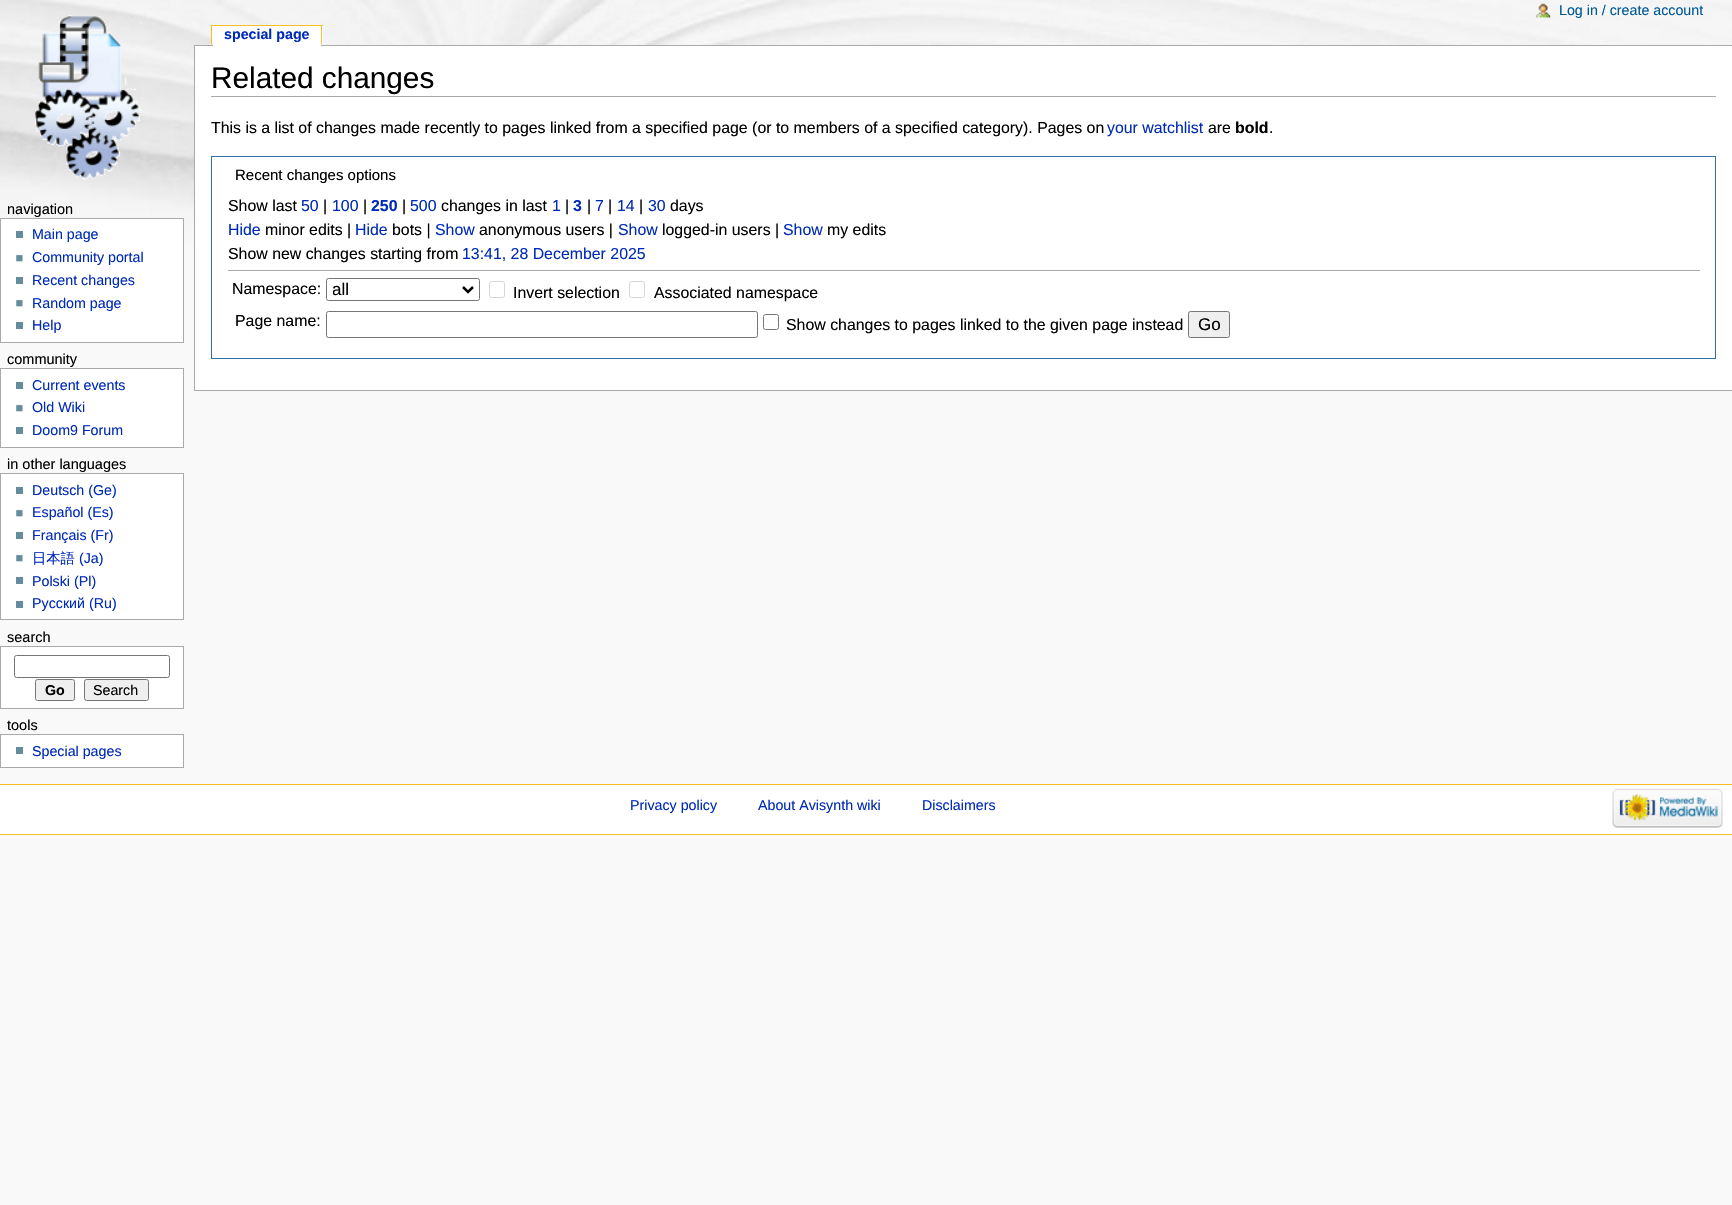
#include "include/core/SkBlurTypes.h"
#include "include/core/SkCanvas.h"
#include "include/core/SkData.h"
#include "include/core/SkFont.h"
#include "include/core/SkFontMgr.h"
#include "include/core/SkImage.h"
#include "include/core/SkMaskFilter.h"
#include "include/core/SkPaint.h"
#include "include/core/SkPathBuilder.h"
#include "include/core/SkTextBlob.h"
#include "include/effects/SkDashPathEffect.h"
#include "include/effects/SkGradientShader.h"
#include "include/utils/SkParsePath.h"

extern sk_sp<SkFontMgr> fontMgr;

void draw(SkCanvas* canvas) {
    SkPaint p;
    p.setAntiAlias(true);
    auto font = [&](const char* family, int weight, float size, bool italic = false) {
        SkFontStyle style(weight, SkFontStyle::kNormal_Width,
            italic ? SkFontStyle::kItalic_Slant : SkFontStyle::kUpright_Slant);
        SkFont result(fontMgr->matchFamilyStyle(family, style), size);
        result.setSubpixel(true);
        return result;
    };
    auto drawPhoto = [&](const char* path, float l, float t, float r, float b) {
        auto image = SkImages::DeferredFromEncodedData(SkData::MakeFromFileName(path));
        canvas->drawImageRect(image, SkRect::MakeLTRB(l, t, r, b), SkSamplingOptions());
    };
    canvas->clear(0xFFF9F9F9);
    drawPhoto("media/1.png", 0, 0, 1732, 243);
    drawPhoto("media/2.png", 1536, 3, 1551, 18);
    auto font1 = font("Liberation Sans", 400, 14.25f);
    p.setColor(0xFF005896);
    canvas->drawString("Log in / create account", 1559, 15, font1, p);
    drawPhoto("media/3.png", 34, 15, 143, 180);
    p.setColor(0xFFFFFFFF);
    canvas->drawRect(SkRect::MakeLTRB(212, 26, 323, 44), p);
    auto font2 = font("Liberation Sans", 700, 14.25f);
    p.setColor(0xFF002BB8);
    canvas->drawString("special page", 224, 39, font2, p);
    {
        const struct { float l, t, r, b; SkColor color; } items[] = {
            {211, 25, 323, 26, 0xFFFABD23},
            {321, 25, 322, 44, 0xFFFABD23},
            {211, 25, 212, 44, 0xFFFABD23},
            {194, 45, 1732, 46, 0xFFAAAAAA},
            {213, 44, 321, 46, 0xFFFFFFFF},
        };
        for (auto [l, t, r, b, color] : items) {
            p.setColor(color);
            canvas->drawRect(SkRect::MakeLTRB(l, t, r, b), p);
        }
    }
    auto font3 = font("Liberation Sans", 400, 14.5f);
    p.setColor(0xFF000000);
    canvas->drawString("navigation", 7, 214, font3, p);
    p.setColor(0xFFFFFFFF);
    canvas->drawRect(SkRect::MakeLTRB(0.5f, 218.5f, 183.5f, 342.5f), p);
    p.setStyle(SkPaint::kStroke_Style);
    p.setStrokeWidth(1);
    p.setColor(0xFFAAAAAA);
    canvas->drawRect(SkRect::MakeLTRB(0.5f, 218.5f, 183.5f, 342.5f), p);
    p.setStyle(SkPaint::kFill_Style);
    p.setColor(0xFF638C9C);
    canvas->drawRect(SkRect::MakeLTRB(16, 231, 23, 238), p);
    p.setColor(0xFF002BB8);
    canvas->drawString("Main page", 32, 239, font1, p);
    drawPhoto("media/4.png", 16, 254, 23, 262);
    canvas->drawString("Community portal", 32, 262, font1, p);
    p.setColor(0xFF638C9C);
    canvas->drawRect(SkRect::MakeLTRB(16, 277, 23, 284), p);
    p.setColor(0xFF002BB8);
    canvas->drawString("Recent changes", 32, 285, font1, p);
    drawPhoto("media/4.png", 16, 299, 23, 307);
    canvas->drawString("Random page", 32, 308, font1, p);
    p.setColor(0xFF638C9C);
    canvas->drawRect(SkRect::MakeLTRB(16, 322, 23, 329), p);
    p.setColor(0xFF002BB8);
    canvas->drawString("Help", 32, 330, font1, p);
    p.setColor(0xFF000000);
    canvas->drawString("community", 7, 364, font3, p);
    p.setColor(0xFFFFFFFF);
    canvas->drawRect(SkRect::MakeLTRB(0.5f, 368.5f, 183.5f, 447.5f), p);
    p.setStyle(SkPaint::kStroke_Style);
    p.setColor(0xFFAAAAAA);
    canvas->drawRect(SkRect::MakeLTRB(0.5f, 368.5f, 183.5f, 447.5f), p);
    p.setStyle(SkPaint::kFill_Style);
    p.setColor(0xFF638C9C);
    canvas->drawRect(SkRect::MakeLTRB(16, 382, 23, 389), p);
    p.setColor(0xFF002BB8);
    canvas->drawString("Current events", 32, 390, font1, p);
    drawPhoto("media/4.png", 16, 404, 23, 412);
    canvas->drawString("Old Wiki", 32, 412, font1, p);
    p.setColor(0xFF638C9C);
    canvas->drawRect(SkRect::MakeLTRB(16, 427, 23, 434), p);
    p.setColor(0xFF002BB8);
    canvas->drawString("Doom9 Forum", 32, 435, font1, p);
    p.setColor(0xFF000000);
    canvas->drawString("in other languages", 7, 469, font3, p);
    p.setColor(0xFFFFFFFF);
    canvas->drawRect(SkRect::MakeLTRB(0.5f, 473.5f, 183.5f, 619.5f), p);
    p.setStyle(SkPaint::kStroke_Style);
    p.setColor(0xFFAAAAAA);
    canvas->drawRect(SkRect::MakeLTRB(0.5f, 473.5f, 183.5f, 619.5f), p);
    p.setStyle(SkPaint::kFill_Style);
    p.setColor(0xFF638C9C);
    canvas->drawRect(SkRect::MakeLTRB(16, 487, 23, 494), p);
    p.setColor(0xFF002BB8);
    canvas->drawString("Deutsch (Ge)", 32, 495, font1, p);
    drawPhoto("media/4.png", 16, 509, 23, 517);
    canvas->drawString("Español (Es)", 32, 517, font1, p);
    p.setColor(0xFF638C9C);
    canvas->drawRect(SkRect::MakeLTRB(16, 532, 23, 539), p);
    p.setColor(0xFF002BB8);
    canvas->drawString("Français (Fr)", 32, 540, font1, p);
    drawPhoto("media/4.png", 16, 554, 23, 562);
    auto font4 = font("WenQuanYi Zen Hei", 500, 14.25f);
    canvas->drawString("日本語", 32, 563, font4, p);
    canvas->drawString("(Ja)", 79, 563, font1, p);
    p.setColor(0xFF638C9C);
    canvas->drawRect(SkRect::MakeLTRB(16, 577, 23, 584), p);
    p.setColor(0xFF002BB8);
    canvas->drawString("Polski (Pl)", 32, 586, font1, p);
    p.setColor(0xFF638C9C);
    canvas->drawRect(SkRect::MakeLTRB(16, 601, 23, 608), p);
    p.setColor(0xFF002BB8);
    canvas->drawString("Русский (Ru)", 32, 608, font1, p);
    p.setColor(0xFF000000);
    canvas->drawString("search", 7, 642, font3, p);
    p.setColor(0xFFFFFFFF);
    canvas->drawRect(SkRect::MakeLTRB(0.5f, 646.5f, 183.5f, 708.5f), p);
    p.setStyle(SkPaint::kStroke_Style);
    p.setColor(0xFFAAAAAA);
    canvas->drawRect(SkRect::MakeLTRB(0.5f, 646.5f, 183.5f, 708.5f), p);
    p.setColor(0xFF767676);
    canvas->drawRoundRect(SkRect::MakeLTRB(14.5f, 655.5f, 169.5f, 677.5f), 2, 2, p);
    p.setStyle(SkPaint::kFill_Style);
    p.setColor(0xFFEFEFEF);
    canvas->drawRoundRect(SkRect::MakeLTRB(35.5f, 679.5f, 74.5f, 700.5f), 2, 2, p);
    p.setStyle(SkPaint::kStroke_Style);
    p.setColor(0xFF767676);
    canvas->drawRoundRect(SkRect::MakeLTRB(35.5f, 679.5f, 74.5f, 700.5f), 2, 2, p);
    p.setStyle(SkPaint::kFill_Style);
    p.setColor(0xFF000000);
    canvas->drawString("Go", 45, 695, font2, p);
    p.setColor(0xFFEFEFEF);
    canvas->drawRoundRect(SkRect::MakeLTRB(84.5f, 679.5f, 148.5f, 700.5f), 2, 2, p);
    p.setStyle(SkPaint::kStroke_Style);
    p.setColor(0xFF767676);
    canvas->drawRoundRect(SkRect::MakeLTRB(84.5f, 679.5f, 148.5f, 700.5f), 2, 2, p);
    p.setStyle(SkPaint::kFill_Style);
    p.setColor(0xFF000000);
    canvas->drawString("Search", 93, 695, font1, p);
    canvas->drawString("tools", 7, 730, font3, p);
    p.setColor(0xFFFFFFFF);
    canvas->drawRect(SkRect::MakeLTRB(0.5f, 734.5f, 183.5f, 767.5f), p);
    p.setStyle(SkPaint::kStroke_Style);
    p.setColor(0xFFAAAAAA);
    canvas->drawRect(SkRect::MakeLTRB(0.5f, 734.5f, 183.5f, 767.5f), p);
    p.setStyle(SkPaint::kFill_Style);
    p.setColor(0xFF638C9C);
    canvas->drawRect(SkRect::MakeLTRB(16, 747, 23, 754), p);
    p.setColor(0xFF002BB8);
    canvas->drawString("Special pages", 32, 756, font1, p);
    {
        const struct { float l, t, r, b; SkColor color; } items[] = {
            {195, 46, 1732, 390, 0xFFFFFFFF},
            {194, 390, 1732, 391, 0xFFAAAAAA},
            {194, 45, 195, 391, 0xFFAAAAAA},
            {211, 96, 1716, 97, 0xFFAAAAAA},
        };
        for (auto [l, t, r, b, color] : items) {
            p.setColor(color);
            canvas->drawRect(SkRect::MakeLTRB(l, t, r, b), p);
        }
    }
    auto font5 = font("Liberation Sans", 400, 29.75f);
    p.setColor(0xFF000000);
    canvas->drawString("Related changes", 211, 88, font5, p);
    auto font6 = font("Liberation Sans", 400, 15.88f);
    canvas->drawString("This is a list of changes made recently to pages linked from a specified page (or to members of a specified category). Pages on", 211, 133, font6, p);
    p.setColor(0xFF002BB8);
    canvas->drawString("your watchlist", 1107, 133, font6, p);
    p.setColor(0xFF000000);
    canvas->drawString("are", 1208, 133, font6, p);
    auto font7 = font("Liberation Sans", 700, 15.88f);
    canvas->drawString("bold", 1235, 133, font7, p);
    canvas->drawString(".", 1269, 133, font6, p);
    p.setStyle(SkPaint::kStroke_Style);
    p.setColor(0xFF2F6FAB);
    canvas->drawRect(SkRect::MakeLTRB(211.5f, 156.5f, 1715.5f, 358.5f), p);
    auto font8 = font("Liberation Sans", 400, 15);
    p.setStyle(SkPaint::kFill_Style);
    p.setColor(0xFF000000);
    canvas->drawString("Recent changes options", 235, 180, font8, p);
    canvas->drawString("Show last", 228, 211, font6, p);
    p.setColor(0xFF002BB8);
    canvas->drawString("50", 301, 211, font6, p);
    p.setColor(0xFF000000);
    canvas->drawString("|", 323, 211, font6, p);
    p.setColor(0xFF002BB8);
    canvas->drawString("100", 332, 211, font6, p);
    p.setColor(0xFF000000);
    canvas->drawString("|", 363, 211, font6, p);
    p.setColor(0xFF002BB8);
    canvas->drawString("250", 371, 211, font7, p);
    p.setColor(0xFF000000);
    canvas->drawString("|", 402, 211, font6, p);
    p.setColor(0xFF002BB8);
    canvas->drawString("500", 410, 211, font6, p);
    p.setColor(0xFF000000);
    canvas->drawString("changes in last", 441, 211, font6, p);
    p.setColor(0xFF002BB8);
    canvas->drawString("1", 552, 211, font6, p);
    p.setColor(0xFF000000);
    canvas->drawString("|", 565, 211, font6, p);
    p.setColor(0xFF002BB8);
    canvas->drawString("3", 573, 211, font7, p);
    p.setColor(0xFF000000);
    canvas->drawString("|", 587, 211, font6, p);
    p.setColor(0xFF002BB8);
    canvas->drawString("7", 595, 211, font6, p);
    p.setColor(0xFF000000);
    canvas->drawString("|", 608, 211, font6, p);
    p.setColor(0xFF002BB8);
    canvas->drawString("14", 617, 211, font6, p);
    p.setColor(0xFF000000);
    canvas->drawString("|", 639, 211, font6, p);
    p.setColor(0xFF002BB8);
    canvas->drawString("30", 648, 211, font6, p);
    p.setColor(0xFF000000);
    canvas->drawString("days", 670, 211, font6, p);
    p.setColor(0xFF002BB8);
    canvas->drawString("Hide", 228, 235, font6, p);
    p.setColor(0xFF000000);
    canvas->drawString("minor edits |", 265, 235, font6, p);
    p.setColor(0xFF002BB8);
    canvas->drawString("Hide", 355, 235, font6, p);
    p.setColor(0xFF000000);
    canvas->drawString("bots |", 392, 235, font6, p);
    p.setColor(0xFF002BB8);
    canvas->drawString("Show", 435, 235, font6, p);
    p.setColor(0xFF000000);
    canvas->drawString("anonymous users |", 479, 235, font6, p);
    p.setColor(0xFF002BB8);
    canvas->drawString("Show", 618, 235, font6, p);
    p.setColor(0xFF000000);
    canvas->drawString("logged-in users |", 662, 235, font6, p);
    p.setColor(0xFF002BB8);
    canvas->drawString("Show", 783, 235, font6, p);
    p.setColor(0xFF000000);
    canvas->drawString("my edits", 827, 235, font6, p);
    canvas->drawString("Show new changes starting from", 228, 259, font6, p);
    p.setColor(0xFF002BB8);
    canvas->drawString("13:41, 28 December 2025", 462, 259, font6, p);
    p.setColor(0xFFAAAAAA);
    canvas->drawRect(SkRect::MakeLTRB(228, 270, 1700, 271), p);
    p.setColor(0xFF000000);
    canvas->drawString("Namespace:", 232, 294, font6, p);
    p.setStyle(SkPaint::kStroke_Style);
    p.setColor(0xFF767676);
    canvas->drawRoundRect(SkRect::MakeLTRB(326.5f, 278.5f, 479.5f, 300.5f), 2, 2, p);
    p.setStrokeWidth(2.5f);
    p.setColor(0xFF000000);
    canvas->drawPath(SkPathBuilder().moveTo(463, 287).lineTo(468, 292).lineTo(473, 287).detach(), p);
    canvas->save();
    canvas->clipRect(SkRect::MakeLTRB(333, 279, 459, 300));
    auto font9 = font("Liberation Sans", 400, 17);
    p.setStyle(SkPaint::kFill_Style);
    canvas->drawString("all", 332, 295, font9, p);
    canvas->restore();
    p.setStyle(SkPaint::kStroke_Style);
    p.setStrokeWidth(1);
    p.setColor(0xFFD6D6D6);
    canvas->drawRoundRect(SkRect::MakeLTRB(489.5f, 281.5f, 504.5f, 297.5f), 2, 2, p);
    p.setStyle(SkPaint::kFill_Style);
    p.setColor(0xFF000000);
    canvas->drawString("Invert selection", 513, 298, font6, p);
    p.setStyle(SkPaint::kStroke_Style);
    p.setColor(0xFFD6D6D6);
    canvas->drawRoundRect(SkRect::MakeLTRB(629.5f, 281.5f, 644.5f, 297.5f), 2, 2, p);
    p.setStyle(SkPaint::kFill_Style);
    p.setColor(0xFF000000);
    canvas->drawString("Associated namespace", 654, 298, font6, p);
    canvas->drawString("Page name:", 235, 326, font6, p);
    p.setStyle(SkPaint::kStroke_Style);
    p.setColor(0xFF767676);
    canvas->drawRoundRect(SkRect::MakeLTRB(326.5f, 311.5f, 757.5f, 337.5f), 2, 2, p);
    canvas->drawRoundRect(SkRect::MakeLTRB(763.5f, 314.5f, 778.5f, 329.5f), 2, 2, p);
    p.setStyle(SkPaint::kFill_Style);
    p.setColor(0xFF000000);
    canvas->drawString("Show changes to pages linked to the given page instead", 786, 330, font6, p);
    p.setColor(0xFFEFEFEF);
    canvas->drawRoundRect(SkRect::MakeLTRB(1188.5f, 311.5f, 1229.5f, 337.5f), 2, 2, p);
    p.setStyle(SkPaint::kStroke_Style);
    p.setColor(0xFF767676);
    canvas->drawRoundRect(SkRect::MakeLTRB(1188.5f, 311.5f, 1229.5f, 337.5f), 2, 2, p);
    p.setStyle(SkPaint::kFill_Style);
    p.setColor(0xFF000000);
    canvas->drawString("Go", 1198, 330, font9, p);
    {
        const struct { float l, t, r, b; SkColor color; } items[] = {
            {0, 785, 1732, 834, 0xFFFFFFFF},
            {0, 784, 1732, 785, 0xFFFABD23},
            {0, 834, 1732, 835, 0xFFFABD23},
        };
        for (auto [l, t, r, b, color] : items) {
            p.setColor(color);
            canvas->drawRect(SkRect::MakeLTRB(l, t, r, b), p);
        }
    }
    p.setColor(0xFF002BB8);
    {
        const struct { const char* s; float x, y; } items[] = {
            {"Privacy policy", 630, 810},
            {"About Avisynth wiki", 758, 810},
            {"Disclaimers", 922, 810},
        };
        for (auto [s, x, y] : items) {
            canvas->drawString(s, x, y, font1, p);
        }
    }
    drawPhoto("media/5.png", 1612, 788, 1723, 828);
}
